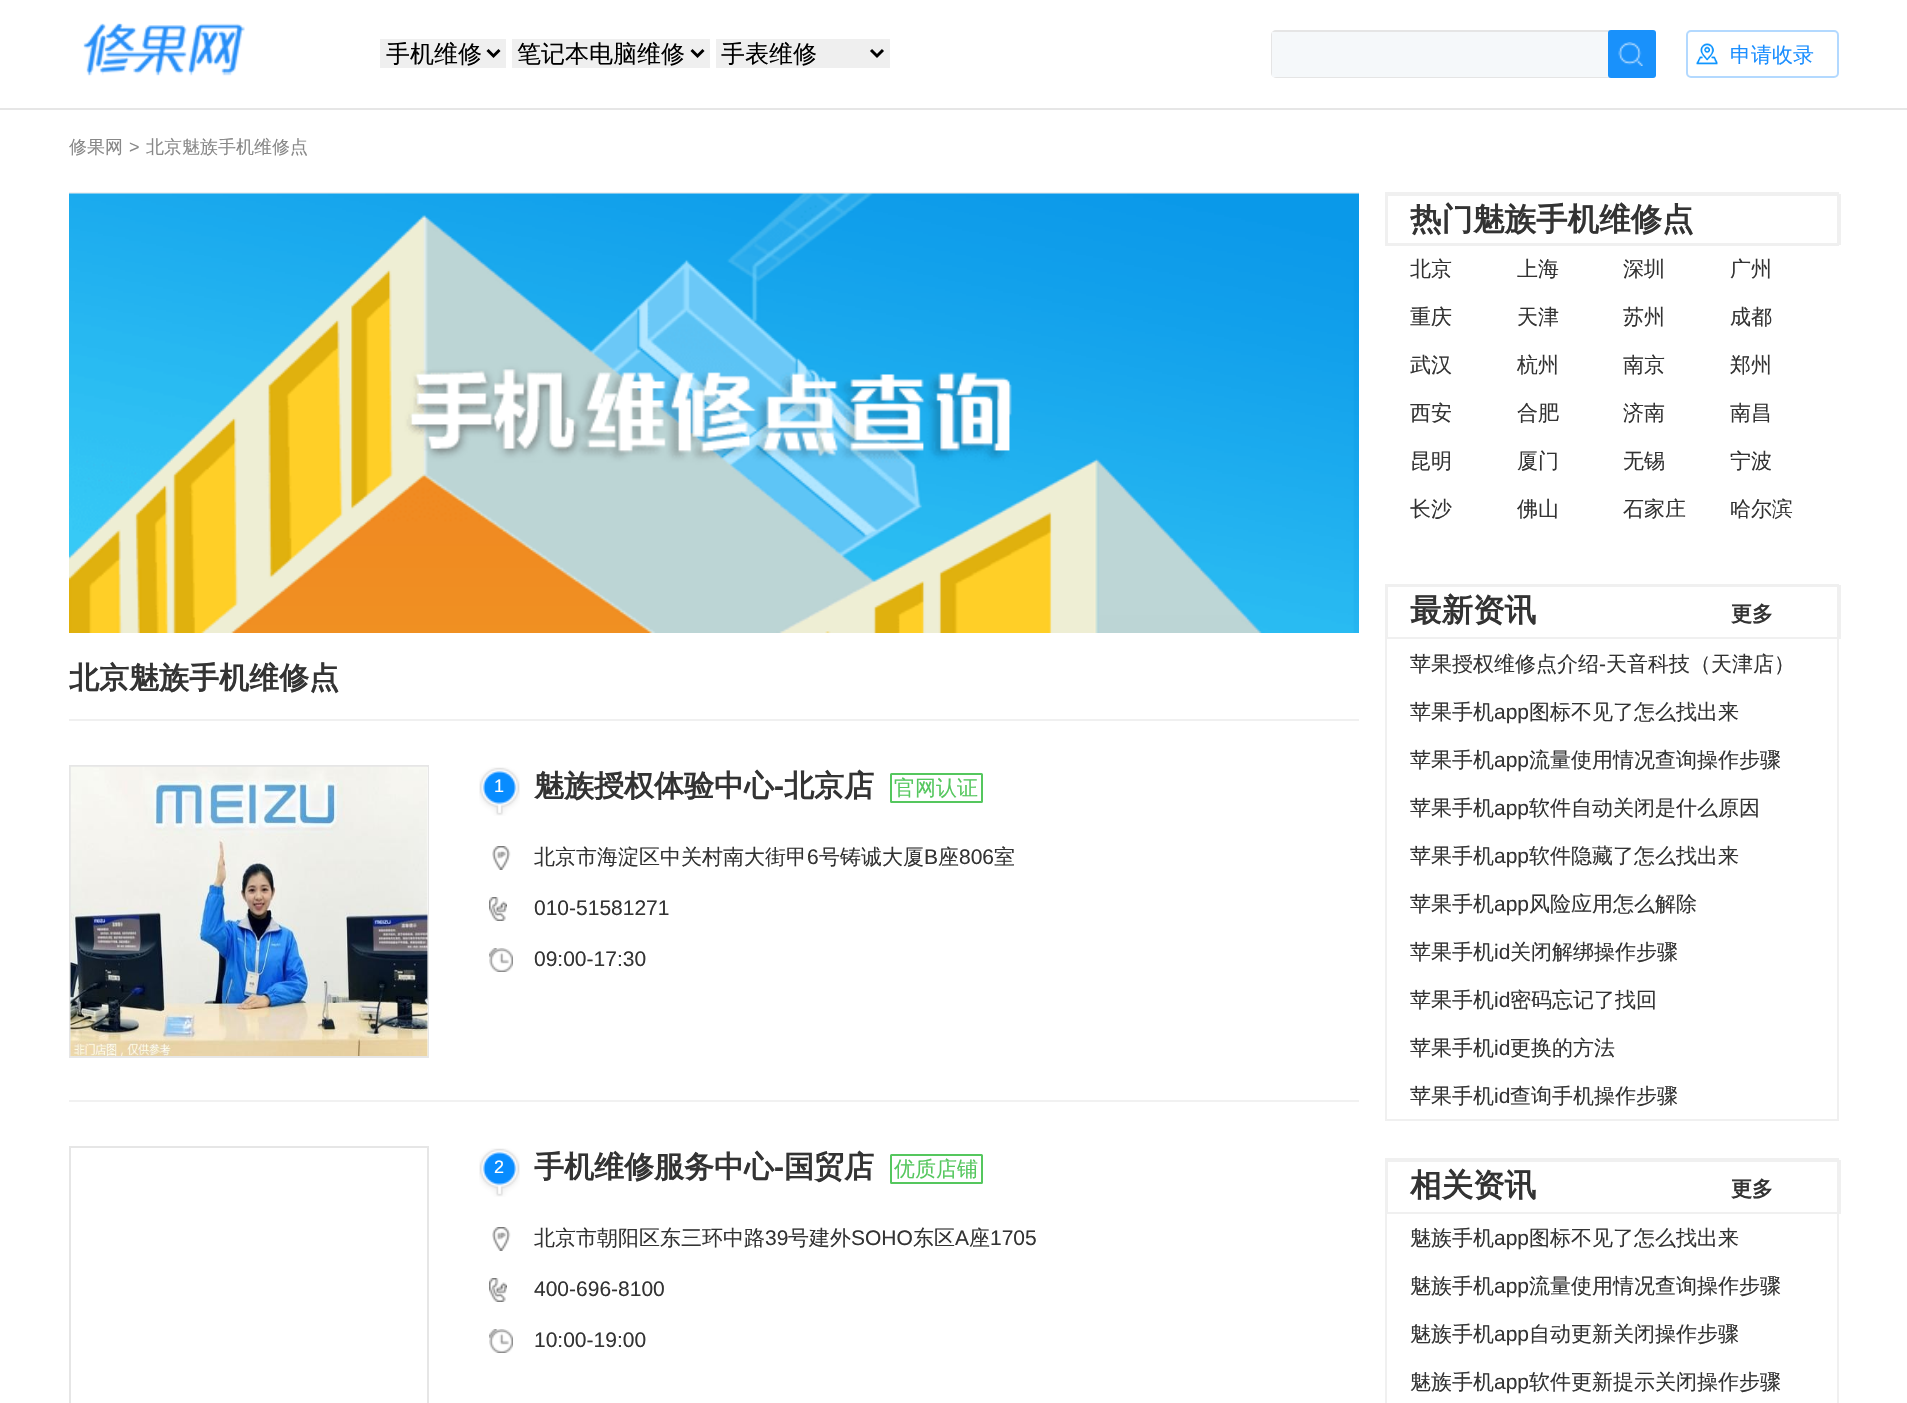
#include "include/core/SkBlurTypes.h"
#include "include/core/SkCanvas.h"
#include "include/core/SkData.h"
#include "include/core/SkFont.h"
#include "include/core/SkFontMgr.h"
#include "include/core/SkImage.h"
#include "include/core/SkMaskFilter.h"
#include "include/core/SkPaint.h"
#include "include/core/SkPathBuilder.h"
#include "include/core/SkTextBlob.h"
#include "include/effects/SkDashPathEffect.h"
#include "include/effects/SkGradientShader.h"
#include "include/utils/SkParsePath.h"

extern sk_sp<SkFontMgr> fontMgr;

void draw(SkCanvas* canvas) {
    SkPaint p;
    p.setAntiAlias(true);
    auto font = [&](const char* family, int weight, float size, bool italic = false) {
        SkFontStyle style(weight, SkFontStyle::kNormal_Width,
            italic ? SkFontStyle::kItalic_Slant : SkFontStyle::kUpright_Slant);
        SkFont result(fontMgr->matchFamilyStyle(family, style), size);
        result.setSubpixel(true);
        return result;
    };
    auto drawPhoto = [&](const char* path, float l, float t, float r, float b) {
        auto image = SkImages::DeferredFromEncodedData(SkData::MakeFromFileName(path));
        canvas->drawImageRect(image, SkRect::MakeLTRB(l, t, r, b), SkSamplingOptions());
    };
    canvas->clear(0xFFFFFFFF);
    p.setColor(0xFFE6E6E6);
    canvas->drawRect(SkRect::MakeLTRB(0, 108, 1907, 110), p);
    drawPhoto("media/1.png", 83, 23, 245, 76);
    p.setColor(0xFFEFEFEF);
    canvas->drawRect(SkRect::MakeLTRB(380, 39, 506, 68), p);
    p.setStyle(SkPaint::kStroke_Style);
    p.setStrokeWidth(3);
    p.setColor(0xFF000000);
    canvas->drawPath(SkPathBuilder().moveTo(487.5f, 50).lineTo(493.5f, 56).lineTo(499.5f, 50).detach(), p);
    auto font1 = font("WenQuanYi Zen Hei", 500, 24);
    p.setStyle(SkPaint::kFill_Style);
    canvas->drawString("手机维修", 386, 62, font1, p);
    p.setColor(0xFFEFEFEF);
    canvas->drawRect(SkRect::MakeLTRB(512, 39, 710, 68), p);
    p.setStyle(SkPaint::kStroke_Style);
    p.setColor(0xFF000000);
    canvas->drawPath(SkPathBuilder().moveTo(691.5f, 50).lineTo(697.5f, 56).lineTo(703.5f, 50).detach(), p);
    p.setStyle(SkPaint::kFill_Style);
    canvas->drawString("笔记本电脑维修", 517, 62, font1, p);
    p.setColor(0xFFEFEFEF);
    canvas->drawRect(SkRect::MakeLTRB(716, 39, 890, 68), p);
    p.setStyle(SkPaint::kStroke_Style);
    p.setColor(0xFF000000);
    canvas->drawPath(SkPathBuilder().moveTo(871, 50).lineTo(877, 56).lineTo(883, 50).detach(), p);
    p.setStyle(SkPaint::kFill_Style);
    canvas->drawString("手表维修", 721, 62, font1, p);
    p.setStyle(SkPaint::kStroke_Style);
    p.setStrokeWidth(2);
    p.setColor(0xFFE5E5E5);
    canvas->drawRoundRect(SkRect::MakeLTRB(1272, 31, 1655, 77), 4, 4, p);
    p.setStyle(SkPaint::kFill_Style);
    p.setColor(0xFFF5F8FA);
    canvas->drawRect(SkRect::MakeLTRB(1272, 32, 1609, 77), p);
    p.setColor(0xFF1991FB);
    canvas->drawRoundRect(SkRect::MakeLTRB(1608, 30, 1656, 78), 3, 3, p);
    drawPhoto("media/2.png", 1618, 42, 1643, 66);
    p.setStyle(SkPaint::kStroke_Style);
    p.setColor(0xFFB3D9FF);
    canvas->drawRoundRect(SkRect::MakeLTRB(1687, 31, 1838, 77), 4, 4, p);
    drawPhoto("media/3.png", 1696, 43, 1718, 65);
    auto font2 = font("WenQuanYi Zen Hei", 500, 21);
    p.setStyle(SkPaint::kFill_Style);
    p.setColor(0xFF1C8FFF);
    canvas->drawString("申请收录", 1730, 62, font2, p);
    auto font3 = font("WenQuanYi Zen Hei", 500, 18);
    p.setColor(0xFF888888);
    canvas->drawString("修果网", 69, 153, font3, p);
    auto font4 = font("Liberation Sans", 400, 18);
    canvas->drawString(">", 129, 153, font4, p);
    canvas->drawString("北京魅族手机维修点", 146, 153, font3, p);
    p.setColor(0xFFF1F1F1);
    canvas->drawRect(SkRect::MakeLTRB(69, 192, 1359, 194), p);
    drawPhoto("media/4.png", 69, 193, 1359, 633);
    p.setColor(0xFFF0F0F0);
    canvas->drawRect(SkRect::MakeLTRB(69, 719, 1359, 721), p);
    auto font5 = font("WenQuanYi Zen Hei", 700, 30);
    p.setColor(0xFF333333);
    canvas->drawString("北京魅族手机维修点", 69, 688, font5, p);
    p.setColor(0xFFF1F1F1);
    canvas->drawRect(SkRect::MakeLTRB(69, 1100, 1359, 1102), p);
    p.setStyle(SkPaint::kStroke_Style);
    p.setColor(0xFFE6E6E6);
    canvas->drawRect(SkRect::MakeLTRB(70, 766, 428, 1057), p);
    p.setStyle(SkPaint::kFill_Style);
    p.setColor(0xFFF9F9F9);
    canvas->drawRect(SkRect::MakeLTRB(427, 767, 428, 1056), p);
    drawPhoto("media/5.png", 70, 766, 428, 1056);
    drawPhoto("media/6.png", 70, 911, 428, 1056);
    drawPhoto("media/7.png", 479, 767, 520, 816);
    p.setColor(0xFFFFFFFF);
    canvas->drawString("1", 494, 792, font4, p);
    p.setColor(0xFF333333);
    canvas->drawString("魅族授权体验中心", 534, 796, font5, p);
    auto font6 = font("Liberation Sans", 700, 30);
    canvas->drawString("-", 774, 796, font6, p);
    canvas->drawString("北京店", 784, 796, font5, p);
    p.setStyle(SkPaint::kStroke_Style);
    p.setColor(0xFF55C75E);
    canvas->drawRoundRect(SkRect::MakeLTRB(891, 774, 982, 802), 0.5f, 0.5f, p);
    p.setStyle(SkPaint::kFill_Style);
    canvas->drawString("官网认证", 894, 795, font2, p);
    drawPhoto("media/8.png", 492, 846, 511, 870);
    p.setColor(0xFF333333);
    canvas->drawString("北京市海淀区中关村南大街甲", 534, 864, font2, p);
    auto font7 = font("Liberation Sans", 400, 21);
    canvas->drawString("6", 807, 864, font7, p);
    canvas->drawString("号铸诚大厦", 819, 864, font2, p);
    canvas->drawString("B", 924, 864, font7, p);
    canvas->drawString("座", 938, 864, font2, p);
    canvas->drawString("806", 959, 864, font7, p);
    canvas->drawString("室", 994, 864, font2, p);
    drawPhoto("media/9.png", 489, 897, 507, 921);
    canvas->drawString("010-51581271", 534, 915, font7, p);
    drawPhoto("media/10.png", 489, 948, 513, 972);
    canvas->drawString("09:00-17:30", 534, 966, font7, p);
    p.setStyle(SkPaint::kStroke_Style);
    p.setColor(0xFFE6E6E6);
    canvas->drawRect(SkRect::MakeLTRB(70, 1147, 428, 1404), p);
    drawPhoto("media/7.png", 479, 1148, 520, 1197);
    p.setStyle(SkPaint::kFill_Style);
    p.setColor(0xFFFFFFFF);
    canvas->drawString("2", 494, 1173, font4, p);
    p.setColor(0xFF333333);
    canvas->drawString("手机维修服务中心", 534, 1177, font5, p);
    canvas->drawString("-", 774, 1177, font6, p);
    canvas->drawString("国贸店", 784, 1177, font5, p);
    p.setStyle(SkPaint::kStroke_Style);
    p.setColor(0xFF55C75E);
    canvas->drawRoundRect(SkRect::MakeLTRB(891, 1155, 982, 1183), 0.5f, 0.5f, p);
    p.setStyle(SkPaint::kFill_Style);
    canvas->drawString("优质店铺", 894, 1176, font2, p);
    drawPhoto("media/8.png", 492, 1227, 511, 1251);
    p.setColor(0xFF333333);
    canvas->drawString("北京市朝阳区东三环中路", 534, 1245, font2, p);
    canvas->drawString("39", 765, 1245, font7, p);
    canvas->drawString("号建外", 788, 1245, font2, p);
    canvas->drawString("SOHO", 851, 1245, font7, p);
    canvas->drawString("东区", 913, 1245, font2, p);
    canvas->drawString("A", 955, 1245, font7, p);
    canvas->drawString("座", 969, 1245, font2, p);
    canvas->drawString("1705", 990, 1245, font7, p);
    drawPhoto("media/9.png", 489, 1278, 507, 1302);
    canvas->drawString("400-696-8100", 534, 1296, font7, p);
    drawPhoto("media/10.png", 489, 1329, 513, 1353);
    canvas->drawString("10:00-19:00", 534, 1347, font7, p);
    p.setStyle(SkPaint::kStroke_Style);
    p.setColor(0xFFF0F0F0);
    canvas->drawRect(SkRect::MakeLTRB(1386, 193, 1838, 245), p);
    canvas->drawRect(SkRect::MakeLTRB(1387, 195, 1840, 244), p);
    auto font8 = font("WenQuanYi Zen Hei", 700, 31.5f);
    p.setStyle(SkPaint::kFill_Style);
    p.setColor(0xFF333333);
    canvas->drawString("热门魅族手机维修点", 1410, 230, font8, p);
    {
        const struct { const char* s; float x, y; } items[] = {
            {"北京", 1410, 276},
            {"上海", 1517, 276},
            {"深圳", 1623, 276},
            {"广州", 1730, 276},
            {"重庆", 1410, 324},
            {"天津", 1517, 324},
            {"苏州", 1623, 324},
            {"成都", 1730, 324},
            {"武汉", 1410, 372},
            {"杭州", 1517, 372},
            {"南京", 1623, 372},
            {"郑州", 1730, 372},
            {"西安", 1410, 420},
            {"合肥", 1517, 420},
            {"济南", 1623, 420},
            {"南昌", 1730, 420},
            {"昆明", 1410, 468},
            {"厦门", 1517, 468},
            {"无锡", 1623, 468},
            {"宁波", 1730, 468},
            {"长沙", 1410, 516},
            {"佛山", 1517, 516},
            {"石家庄", 1623, 516},
            {"哈尔滨", 1730, 516},
        };
        for (auto [s, x, y] : items) {
            canvas->drawString(s, x, y, font2, p);
        }
    }
    p.setStyle(SkPaint::kStroke_Style);
    p.setColor(0xFFF0F0F0);
    canvas->drawRect(SkRect::MakeLTRB(1386, 585, 1838, 1120), p);
    canvas->drawRect(SkRect::MakeLTRB(1387, 586, 1840, 638), p);
    p.setStyle(SkPaint::kFill_Style);
    p.setColor(0xFF333333);
    canvas->drawString("最新资讯", 1410, 621, font8, p);
    auto font9 = font("WenQuanYi Zen Hei", 700, 21);
    canvas->drawString("更多", 1731, 621, font9, p);
    canvas->drawString("苹果授权维修点介绍", 1410, 671, font2, p);
    canvas->drawString("-", 1599, 671, font7, p);
    canvas->drawString("天音科技（天津店）", 1606, 671, font2, p);
    canvas->drawString("苹果手机", 1410, 719, font2, p);
    canvas->drawString("app", 1494, 719, font7, p);
    canvas->drawString("图标不见了怎么找出来", 1529, 719, font2, p);
    canvas->drawString("苹果手机", 1410, 767, font2, p);
    canvas->drawString("app", 1494, 767, font7, p);
    canvas->drawString("流量使用情况查询操作步骤", 1529, 767, font2, p);
    canvas->drawString("苹果手机", 1410, 815, font2, p);
    canvas->drawString("app", 1494, 815, font7, p);
    canvas->drawString("软件自动关闭是什么原因", 1529, 815, font2, p);
    canvas->drawString("苹果手机", 1410, 863, font2, p);
    canvas->drawString("app", 1494, 863, font7, p);
    canvas->drawString("软件隐藏了怎么找出来", 1529, 863, font2, p);
    canvas->drawString("苹果手机", 1410, 911, font2, p);
    canvas->drawString("app", 1494, 911, font7, p);
    canvas->drawString("风险应用怎么解除", 1529, 911, font2, p);
    canvas->drawString("苹果手机", 1410, 959, font2, p);
    canvas->drawString("id", 1494, 959, font7, p);
    canvas->drawString("关闭解绑操作步骤", 1510, 959, font2, p);
    canvas->drawString("苹果手机", 1410, 1007, font2, p);
    canvas->drawString("id", 1494, 1007, font7, p);
    canvas->drawString("密码忘记了找回", 1510, 1007, font2, p);
    canvas->drawString("苹果手机", 1410, 1055, font2, p);
    canvas->drawString("id", 1494, 1055, font7, p);
    canvas->drawString("更换的方法", 1510, 1055, font2, p);
    canvas->drawString("苹果手机", 1410, 1103, font2, p);
    canvas->drawString("id", 1494, 1103, font7, p);
    canvas->drawString("查询手机操作步骤", 1510, 1103, font2, p);
    p.setStyle(SkPaint::kStroke_Style);
    p.setColor(0xFFF0F0F0);
    canvas->drawRect(SkRect::MakeLTRB(1386, 1159, 1838, 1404), p);
    canvas->drawRect(SkRect::MakeLTRB(1387, 1161, 1840, 1213), p);
    p.setStyle(SkPaint::kFill_Style);
    p.setColor(0xFF333333);
    canvas->drawString("相关资讯", 1410, 1196, font8, p);
    canvas->drawString("更多", 1731, 1196, font9, p);
    canvas->drawString("魅族手机", 1410, 1245, font2, p);
    canvas->drawString("app", 1494, 1245, font7, p);
    canvas->drawString("图标不见了怎么找出来", 1529, 1245, font2, p);
    canvas->drawString("魅族手机", 1410, 1293, font2, p);
    canvas->drawString("app", 1494, 1293, font7, p);
    canvas->drawString("流量使用情况查询操作步骤", 1529, 1293, font2, p);
    canvas->drawString("魅族手机", 1410, 1341, font2, p);
    canvas->drawString("app", 1494, 1341, font7, p);
    canvas->drawString("自动更新关闭操作步骤", 1529, 1341, font2, p);
    canvas->drawString("魅族手机", 1410, 1389, font2, p);
    canvas->drawString("app", 1494, 1389, font7, p);
    canvas->drawString("软件更新提示关闭操作步骤", 1529, 1389, font2, p);
}
